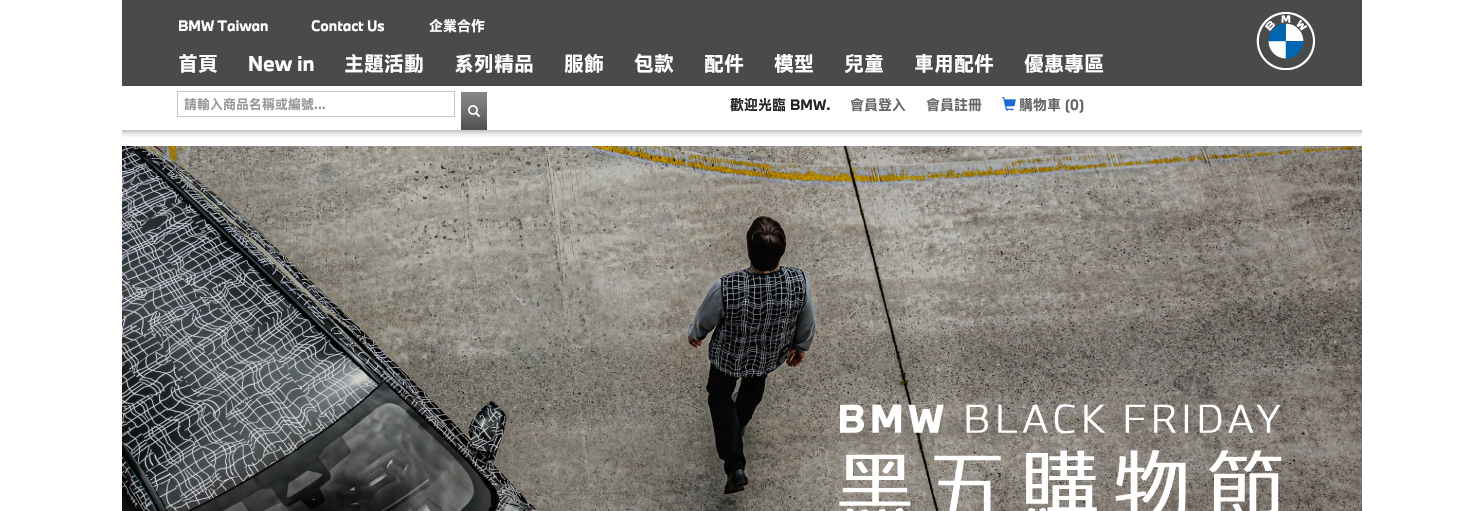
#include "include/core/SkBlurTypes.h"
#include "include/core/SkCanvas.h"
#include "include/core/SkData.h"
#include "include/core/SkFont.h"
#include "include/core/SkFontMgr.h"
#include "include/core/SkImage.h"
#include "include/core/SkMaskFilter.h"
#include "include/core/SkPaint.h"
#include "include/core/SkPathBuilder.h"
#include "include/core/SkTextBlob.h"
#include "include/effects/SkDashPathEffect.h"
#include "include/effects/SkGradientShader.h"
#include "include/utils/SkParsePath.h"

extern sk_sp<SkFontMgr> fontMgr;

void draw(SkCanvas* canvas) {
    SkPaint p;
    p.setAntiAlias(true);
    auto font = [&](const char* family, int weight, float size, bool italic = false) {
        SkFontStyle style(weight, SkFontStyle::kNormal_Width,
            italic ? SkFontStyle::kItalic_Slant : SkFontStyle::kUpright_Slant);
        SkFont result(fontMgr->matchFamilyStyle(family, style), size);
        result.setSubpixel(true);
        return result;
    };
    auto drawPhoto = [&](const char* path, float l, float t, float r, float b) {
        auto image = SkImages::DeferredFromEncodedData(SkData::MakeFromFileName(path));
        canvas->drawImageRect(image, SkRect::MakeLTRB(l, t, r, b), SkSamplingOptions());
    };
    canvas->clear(0xFFFFFFFF);
    p.setColor(0xFF494B4A);
    canvas->drawRect(SkRect::MakeLTRB(122, 0, 1362, 86), p);
    auto font1 = font("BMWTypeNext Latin", 700, 14);
    p.setColor(0xFFFFFFFF);
    canvas->drawString("BMW Taiwan", 178, 31, font1, p);
    canvas->drawString("Contact Us", 311, 31, font1, p);
    auto font2 = font("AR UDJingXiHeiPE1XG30", 900, 14);
    canvas->drawString("企業合作", 429, 31, font2, p);
    auto font3 = font("AR UDJingXiHeiPE1XG30", 900, 20);
    canvas->drawString("首頁", 178, 71, font3, p);
    auto font4 = font("BMWTypeNext Latin", 700, 20);
    canvas->drawString("New in", 248, 71, font4, p);
    {
        const struct { const char* s; float x, y; } items[] = {
            {"主題活動", 344, 71},
            {"系列精品", 454, 71},
            {"服飾", 564, 71},
            {"包款", 634, 71},
            {"配件", 704, 71},
            {"模型", 774, 71},
            {"兒童", 844, 71},
            {"車用配件", 914, 71},
            {"優惠專區", 1024, 71},
        };
        for (auto [s, x, y] : items) {
            canvas->drawString(s, x, y, font3, p);
        }
    }
    drawPhoto("media/1.png", 1256, 12, 1315, 70);
    drawPhoto("media/2.png", 122, 130, 1362, 137);
    p.setStyle(SkPaint::kStroke_Style);
    p.setStrokeWidth(1);
    p.setColor(0xFFC6C6C6);
    canvas->drawRect(SkRect::MakeLTRB(177.5f, 91.5f, 454.5f, 116.5f), p);
    auto font5 = font("AR UDJingXiHeiPE1XG30", 900, 13);
    p.setStyle(SkPaint::kFill_Style);
    p.setColor(0xFF999999);
    canvas->drawString("請輸入商品名稱或編號", 184, 109, font5, p);
    auto font6 = font("BMWTypeNext Latin", 700, 13);
    canvas->drawString("...", 314, 109, font6, p);
    drawPhoto("media/3.png", 461, 92, 487, 130);
    drawPhoto("media/4.png", 468, 105, 480, 117);
    p.setColor(0xFF262626);
    canvas->drawString("歡迎光臨", 730, 110, font2, p);
    canvas->drawString("BMW.", 790, 110, font1, p);
    p.setColor(0xFF666666);
    canvas->drawString("會員登入", 850, 110, font2, p);
    canvas->drawString("會員註冊", 926, 110, font2, p);
    drawPhoto("media/5.png", 1002, 97, 1016, 111);
    canvas->drawString("購物車", 1019, 110, font2, p);
    canvas->drawString("(0)", 1065, 110, font1, p);
    drawPhoto("media/6.png", 122, 146, 1362, 511);
}
